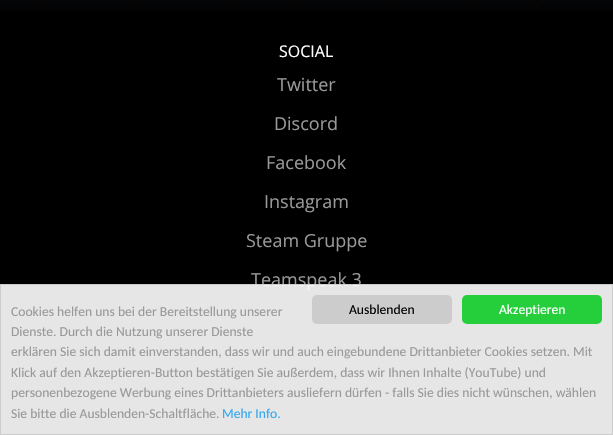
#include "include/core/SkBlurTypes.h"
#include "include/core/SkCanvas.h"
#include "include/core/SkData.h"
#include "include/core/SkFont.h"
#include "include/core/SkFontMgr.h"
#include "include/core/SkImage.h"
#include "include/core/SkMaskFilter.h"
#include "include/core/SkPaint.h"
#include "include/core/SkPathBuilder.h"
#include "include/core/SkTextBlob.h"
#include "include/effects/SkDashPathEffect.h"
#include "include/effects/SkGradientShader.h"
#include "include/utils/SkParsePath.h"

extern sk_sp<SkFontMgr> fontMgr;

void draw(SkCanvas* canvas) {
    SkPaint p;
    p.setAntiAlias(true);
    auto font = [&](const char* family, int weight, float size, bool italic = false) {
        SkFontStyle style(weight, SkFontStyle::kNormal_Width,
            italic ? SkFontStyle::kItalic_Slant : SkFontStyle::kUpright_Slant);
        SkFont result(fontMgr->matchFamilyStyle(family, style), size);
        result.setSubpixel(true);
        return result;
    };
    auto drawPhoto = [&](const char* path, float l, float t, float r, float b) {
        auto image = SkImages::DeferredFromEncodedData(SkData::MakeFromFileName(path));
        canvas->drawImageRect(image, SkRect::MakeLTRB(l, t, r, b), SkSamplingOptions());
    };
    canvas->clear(0xFF000000);
    drawPhoto("media/1.png", 0, 0, 613, 11);
    auto font1 = font("Open Sans", 400, 16);
    p.setColor(0xFFFFFFFF);
    canvas->drawString("SOCIAL", 279, 57, font1, p);
    auto font2 = font("Open Sans", 400, 18);
    p.setColor(0xFF999999);
    {
        const struct { const char* s; float x, y; } items[] = {
            {"Twitter", 277, 91},
            {"Discord", 274, 130},
            {"Facebook", 266, 169},
            {"Instagram", 264, 208},
            {"Steam Gruppe", 246, 247},
            {"Teamspeak 3", 251, 286},
        };
        for (auto [s, x, y] : items) {
            canvas->drawString(s, x, y, font2, p);
        }
    }
    p.setColor(0xE6FFFFFF);
    canvas->drawRect(SkRect::MakeLTRB(0.5f, 284.5f, 612.5f, 434.5f), p);
    p.setStyle(SkPaint::kStroke_Style);
    p.setStrokeWidth(1);
    p.setColor(0xFFCCCCCC);
    canvas->drawRect(SkRect::MakeLTRB(0.5f, 284.5f, 612.5f, 434.5f), p);
    p.setStyle(SkPaint::kFill_Style);
    canvas->drawRoundRect(SkRect::MakeLTRB(312, 295, 452, 324), 5, 5, p);
    auto font3 = font("Carlito", 400, 13.6f);
    p.setColor(0xFF000000);
    canvas->drawString("Ausblenden", 349, 314, font3, p);
    p.setColor(0xFF25CF3C);
    canvas->drawRoundRect(SkRect::MakeLTRB(462, 295, 602, 324), 5, 5, p);
    p.setColor(0xFFFFFFFF);
    canvas->drawString("Akzeptieren", 499, 314, font3, p);
    p.setColor(0xFF999999);
    {
        const struct { const char* s; float x, y; } items[] = {
            {"Cookies helfen uns bei der Bereitstellung unserer", 11, 316},
            {"Dienste. Durch die Nutzung unserer Dienste", 11, 336},
            {"erklären Sie sich damit einverstanden, dass wir und auch eingebundene Drittanbieter Cookies setzen. Mit", 11, 356},
            {"Klick auf den Akzeptieren-Button bestätigen Sie außerdem, dass wir Ihnen Inhalte (YouTube) und", 11, 377},
            {"personenbezogene Werbung eines Drittanbieters ausliefern dürfen - falls Sie dies nicht wünschen, wählen", 11, 397},
            {"Sie bitte die Ausblenden-Schaltfläche.", 11, 418},
        };
        for (auto [s, x, y] : items) {
            canvas->drawString(s, x, y, font3, p);
        }
    }
    p.setColor(0xFF31A8F0);
    canvas->drawString("Mehr Info.", 222, 418, font3, p);
}
